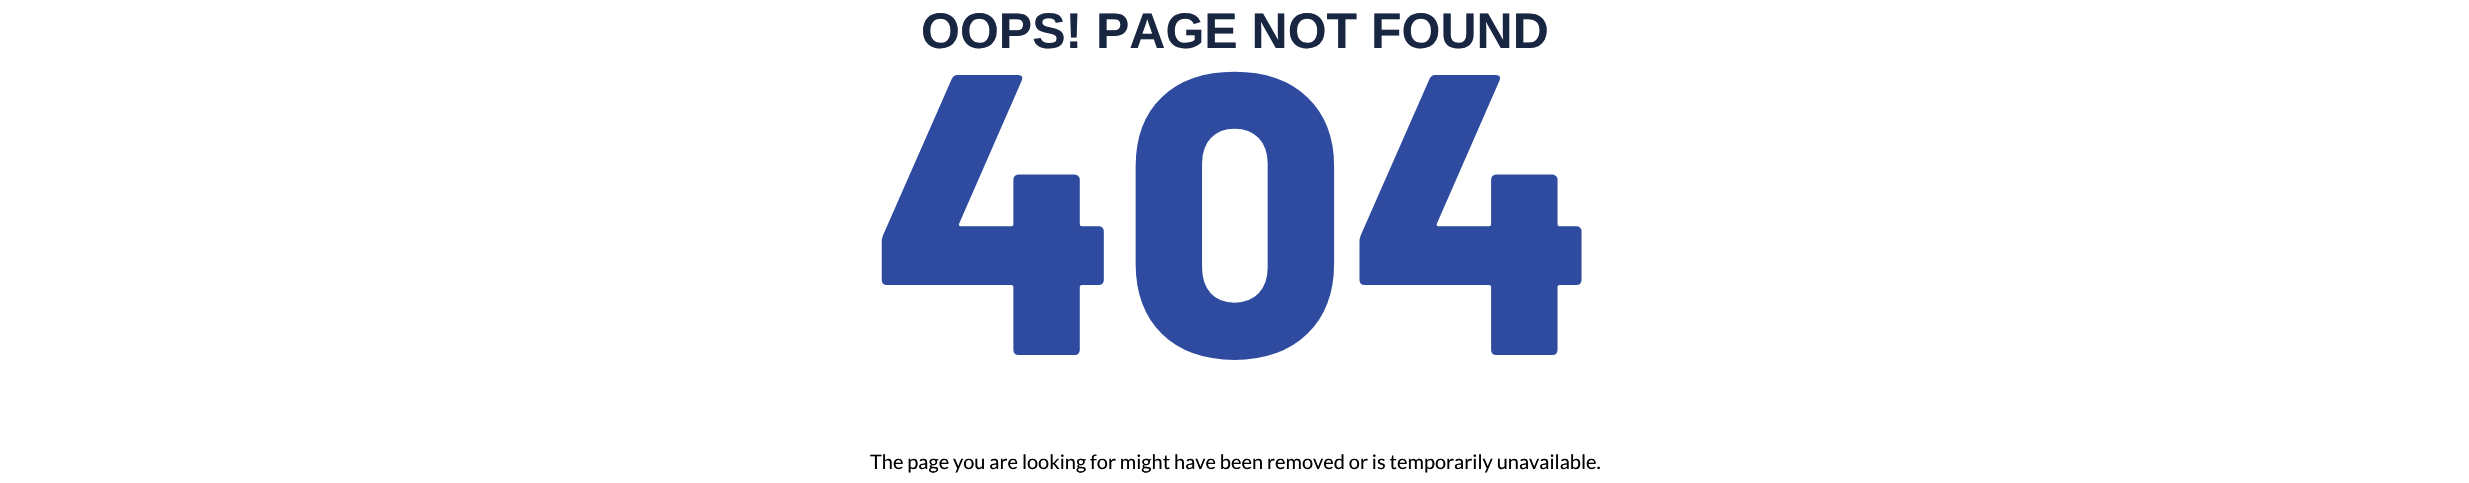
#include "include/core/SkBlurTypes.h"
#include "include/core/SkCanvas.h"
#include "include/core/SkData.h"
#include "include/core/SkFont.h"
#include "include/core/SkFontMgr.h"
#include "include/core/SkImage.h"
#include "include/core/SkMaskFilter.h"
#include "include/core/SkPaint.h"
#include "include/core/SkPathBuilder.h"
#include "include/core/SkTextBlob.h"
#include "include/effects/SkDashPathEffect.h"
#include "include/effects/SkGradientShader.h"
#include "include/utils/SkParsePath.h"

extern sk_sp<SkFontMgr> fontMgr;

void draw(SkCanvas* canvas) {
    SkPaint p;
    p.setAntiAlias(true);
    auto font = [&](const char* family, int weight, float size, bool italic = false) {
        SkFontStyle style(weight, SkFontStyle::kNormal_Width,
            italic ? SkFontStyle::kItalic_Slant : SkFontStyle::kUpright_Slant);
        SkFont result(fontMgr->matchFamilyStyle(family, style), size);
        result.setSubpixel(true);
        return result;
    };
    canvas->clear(0xFFFFFFFF);
    auto font1 = font("Liberation Sans", 700, 50);
    p.setColor(0xFF182642);
    canvas->drawString("OOPS! PAGE NOT FOUND", 921, 48, font1, p);
    auto font2 = font("Barlow", 800, 400);
    p.setColor(0xFF2F4BA0);
    canvas->drawString("404", 871, 355, font2, p);
    auto font3 = font("Lato", 400, 20);
    p.setColor(0xFF000000);
    canvas->drawString("The page you are looking for might have been removed or is temporarily unavailable.", 870, 469, font3, p);
}
